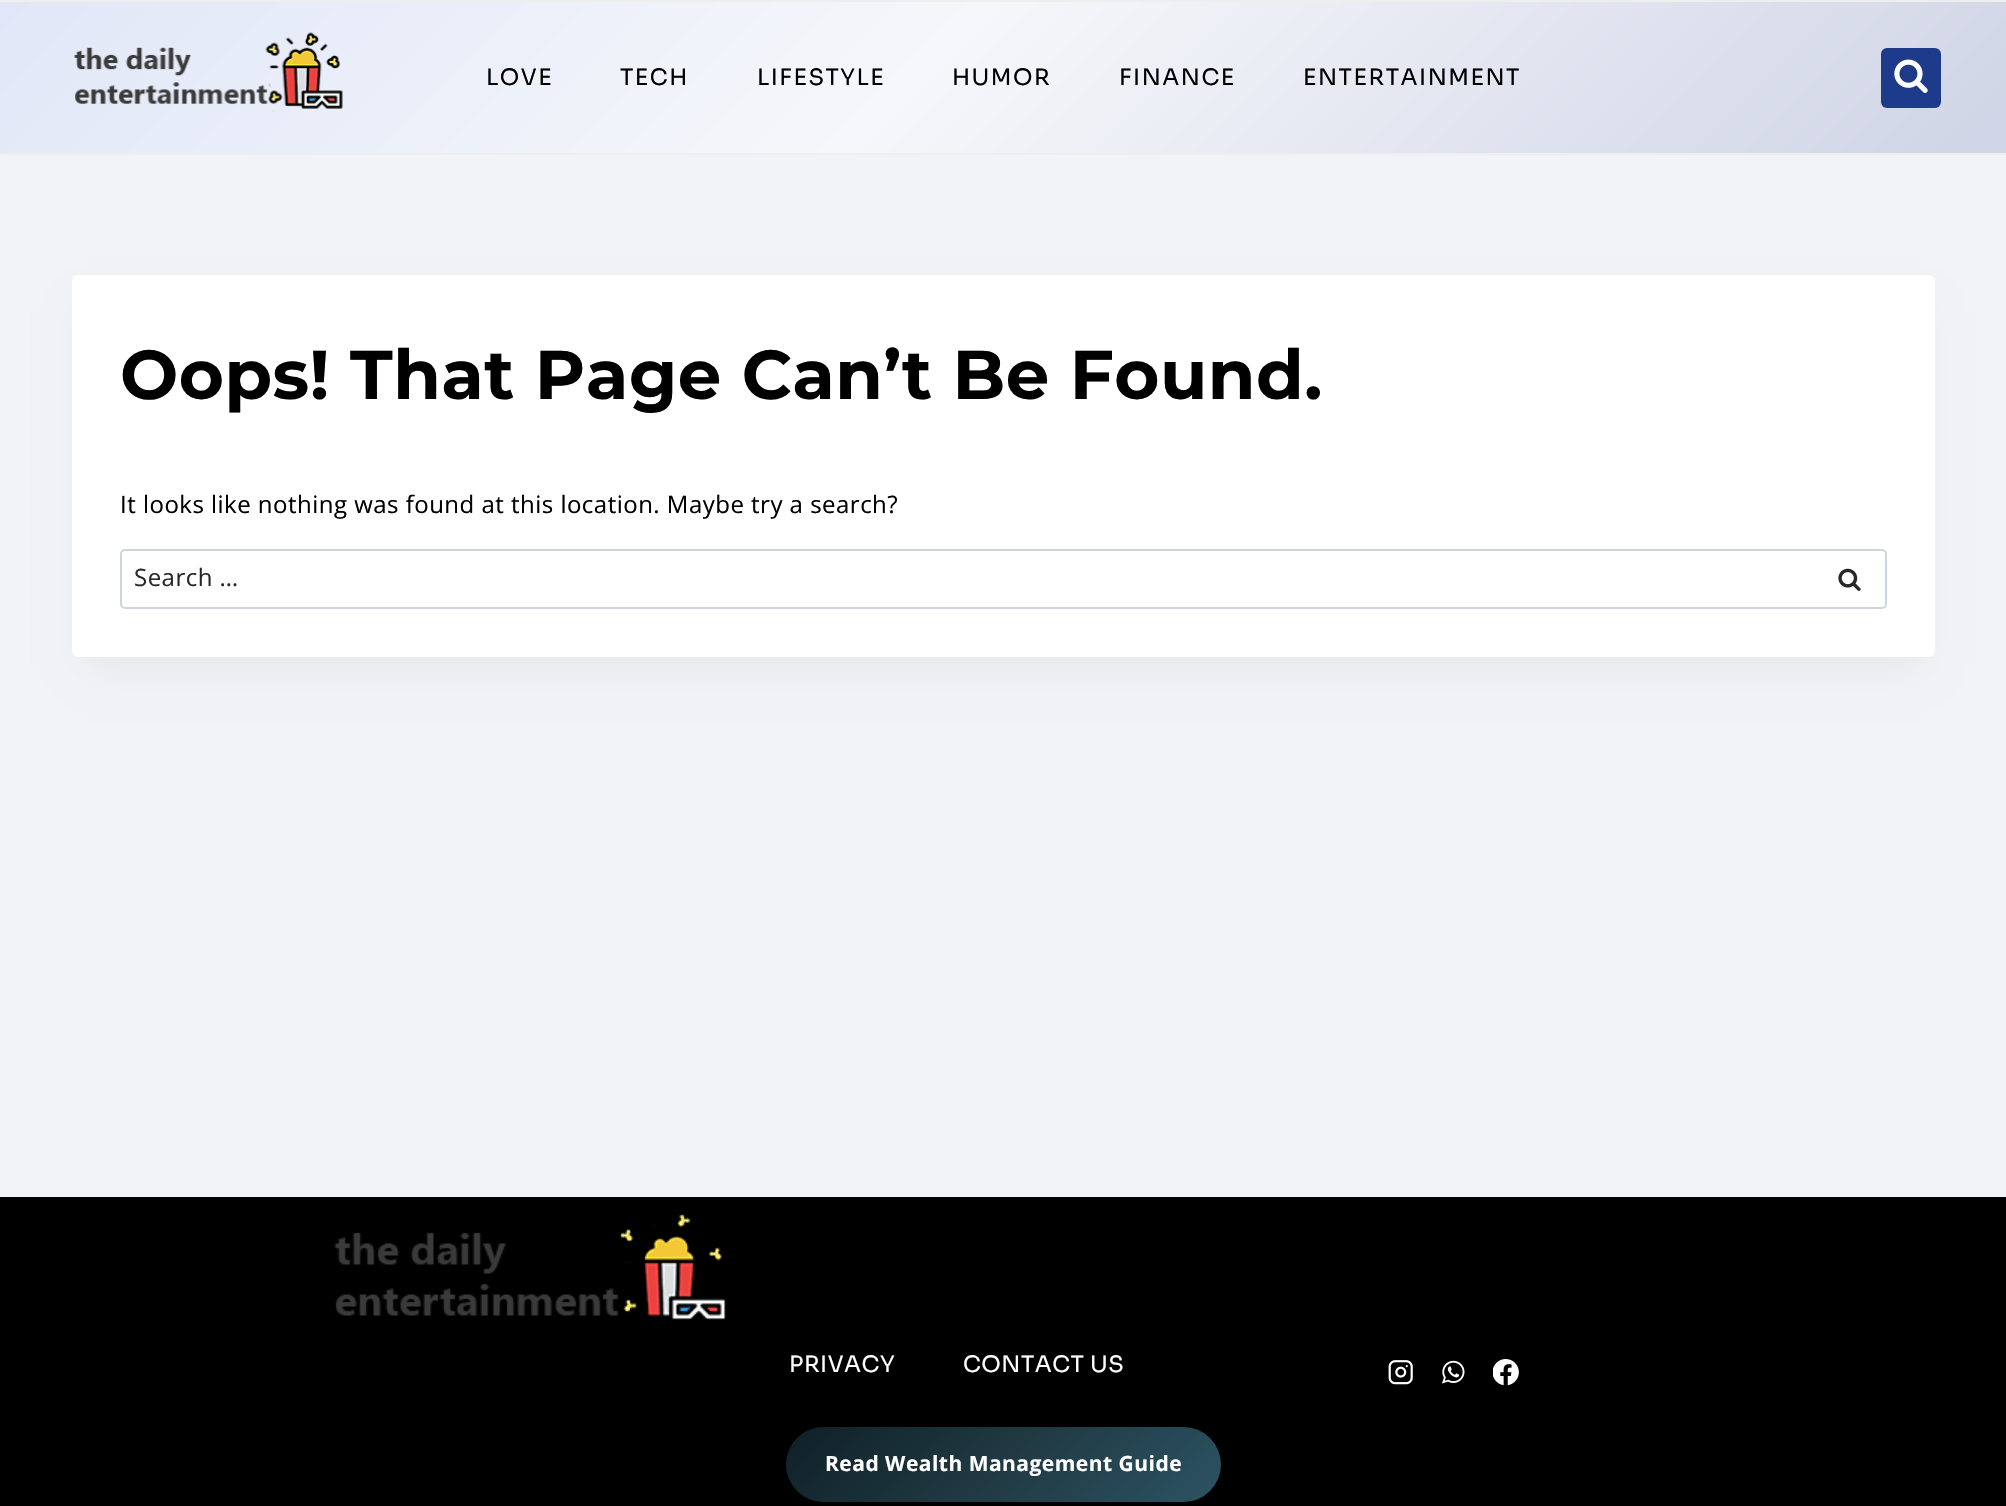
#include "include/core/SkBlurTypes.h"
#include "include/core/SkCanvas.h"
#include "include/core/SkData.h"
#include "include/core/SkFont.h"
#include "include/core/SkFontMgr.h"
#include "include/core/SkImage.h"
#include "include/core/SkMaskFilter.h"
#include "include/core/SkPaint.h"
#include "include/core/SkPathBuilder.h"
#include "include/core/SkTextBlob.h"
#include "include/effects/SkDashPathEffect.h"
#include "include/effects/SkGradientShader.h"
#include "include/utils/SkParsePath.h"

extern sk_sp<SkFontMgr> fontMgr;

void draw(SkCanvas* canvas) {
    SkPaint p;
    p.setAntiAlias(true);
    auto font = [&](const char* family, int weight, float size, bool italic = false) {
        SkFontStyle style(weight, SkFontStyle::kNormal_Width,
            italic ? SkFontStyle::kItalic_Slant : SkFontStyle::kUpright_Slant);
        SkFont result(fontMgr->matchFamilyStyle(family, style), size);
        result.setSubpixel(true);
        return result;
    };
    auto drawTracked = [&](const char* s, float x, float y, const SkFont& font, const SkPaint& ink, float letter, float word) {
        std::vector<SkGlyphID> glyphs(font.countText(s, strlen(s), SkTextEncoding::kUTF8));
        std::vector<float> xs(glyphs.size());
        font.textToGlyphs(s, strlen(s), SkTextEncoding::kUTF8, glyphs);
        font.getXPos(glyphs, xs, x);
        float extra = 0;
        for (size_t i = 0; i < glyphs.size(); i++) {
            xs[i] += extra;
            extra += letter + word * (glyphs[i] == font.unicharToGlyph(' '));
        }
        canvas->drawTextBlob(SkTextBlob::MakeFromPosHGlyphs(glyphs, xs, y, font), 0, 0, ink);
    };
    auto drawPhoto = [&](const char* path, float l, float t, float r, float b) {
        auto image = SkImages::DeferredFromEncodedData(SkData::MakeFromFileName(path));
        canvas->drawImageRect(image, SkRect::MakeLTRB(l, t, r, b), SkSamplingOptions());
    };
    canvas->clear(0xFFF1F3F6);
    {
        const SkColor colors[] = {0xFFE1E7F8, 0xFFF5F7FA, 0xFFCFD4E6};
        const float stops[] = {0, 0.46f, 1};
        const SkPoint ends[] = {{464, -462}, {1543, 617}};
        p.setShader(SkGradientShader::MakeLinear(ends, colors, stops, 3, SkTileMode::kClamp));
        p.setAlpha(255);
    }
    canvas->drawRect(SkRect::MakeLTRB(0, 2, 2006, 153), p);
    p.setShader(nullptr);
    p.setColor(0xFFEEEEEE);
    canvas->drawRect(SkRect::MakeLTRB(0, 0, 2006, 2), p);
    canvas->drawRect(SkRect::MakeLTRB(0, 153, 2006, 155), p);
    drawPhoto("media/1.png", 74, 32, 343, 112);
    auto font1 = font("Sora", 400, 22.5f);
    p.setColor(0xFF000000);
    {
        const struct { const char* s; float x, y; } items[] = {
            {"LOVE", 486, 85},
            {"TECH", 620, 85},
            {"LIFESTYLE", 757, 85},
            {"HUMOR", 952, 85},
            {"FINANCE", 1119, 85},
            {"ENTERTAINMENT", 1303, 85},
        };
        for (auto [s, x, y] : items) {
            drawTracked(s, x, y, font1, p, 1.5f, 0);
        }
    }
    p.setColor(0xFF1E3A8A);
    canvas->drawRoundRect(SkRect::MakeLTRB(1881, 48, 1941, 108), 6, 6, p);
    drawPhoto("media/2.png", 1894, 59, 1928, 93);
    p.setColor(0x0D000000);
    p.setMaskFilter(SkMaskFilter::MakeBlur(kNormal_SkBlurStyle, 19));
    canvas->drawRect(SkRect::MakeLTRB(87, 312, 1920, 665), p);
    p.setMaskFilter(nullptr);
    p.setColor(0xFFFFFFFF);
    canvas->drawRoundRect(SkRect::MakeLTRB(72, 275, 1935, 657), 6, 6, p);
    auto font2 = font("Montserrat", 100, 69);
    p.setColor(0xFF000000);
    drawTracked("Oops! That Page Can’t Be Found.", 120, 399, font2, p, 0.48f, 0);
    auto font3 = font("Open Sans", 400, 24);
    drawTracked("It looks like nothing was found at this location. Maybe try a search?", 120, 513, font3, p, 0.48f, 0);
    p.setStyle(SkPaint::kStroke_Style);
    p.setStrokeWidth(2);
    p.setColor(0xFFCBD5E0);
    canvas->drawRoundRect(SkRect::MakeLTRB(121, 550, 1886, 608), 4, 4, p);
    p.setStyle(SkPaint::kFill_Style);
    p.setColor(0xFF282828);
    drawTracked("Search …", 134, 586, font3, p, 0.48f, 0);
    drawPhoto("media/3.png", 1838, 568, 1861, 591);
    p.setColor(0xFF000000);
    canvas->drawRect(SkRect::MakeLTRB(0, 1197, 2006, 1506), p);
    drawPhoto("media/4.png", 334, 1214, 726, 1320);
    p.setColor(0xFFFFFFFF);
    drawTracked("PRIVACY", 789, 1372, font1, p, 0.48f, 0);
    drawTracked("CONTACT US", 963, 1372, font1, p, 0.48f, 0);
    drawPhoto("media/5.png", 1388, 1360, 1413, 1385);
    drawPhoto("media/6.png", 1442, 1360, 1465, 1384);
    drawPhoto("media/7.png", 1493, 1359, 1519, 1386);
    {
        const SkColor colors[] = {0xFF0F2027, 0xFF203A43, 0xFF2C5364};
        const float stops[] = {0, 0.5f, 1};
        const SkPoint ends[] = {{876, 1337}, {1131, 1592}};
        p.setShader(SkGradientShader::MakeLinear(ends, colors, stops, 3, SkTileMode::kClamp));
        p.setAlpha(255);
    }
    canvas->drawRoundRect(SkRect::MakeLTRB(786, 1427, 1221, 1502), 37.5f, 37.5f, p);
    auto font4 = font("Open Sans", 700, 21);
    p.setShader(nullptr);
    p.setColor(0xFFFFFFFF);
    drawTracked("Read Wealth Management Guide", 825, 1471, font4, p, 0.48f, 0);
}
